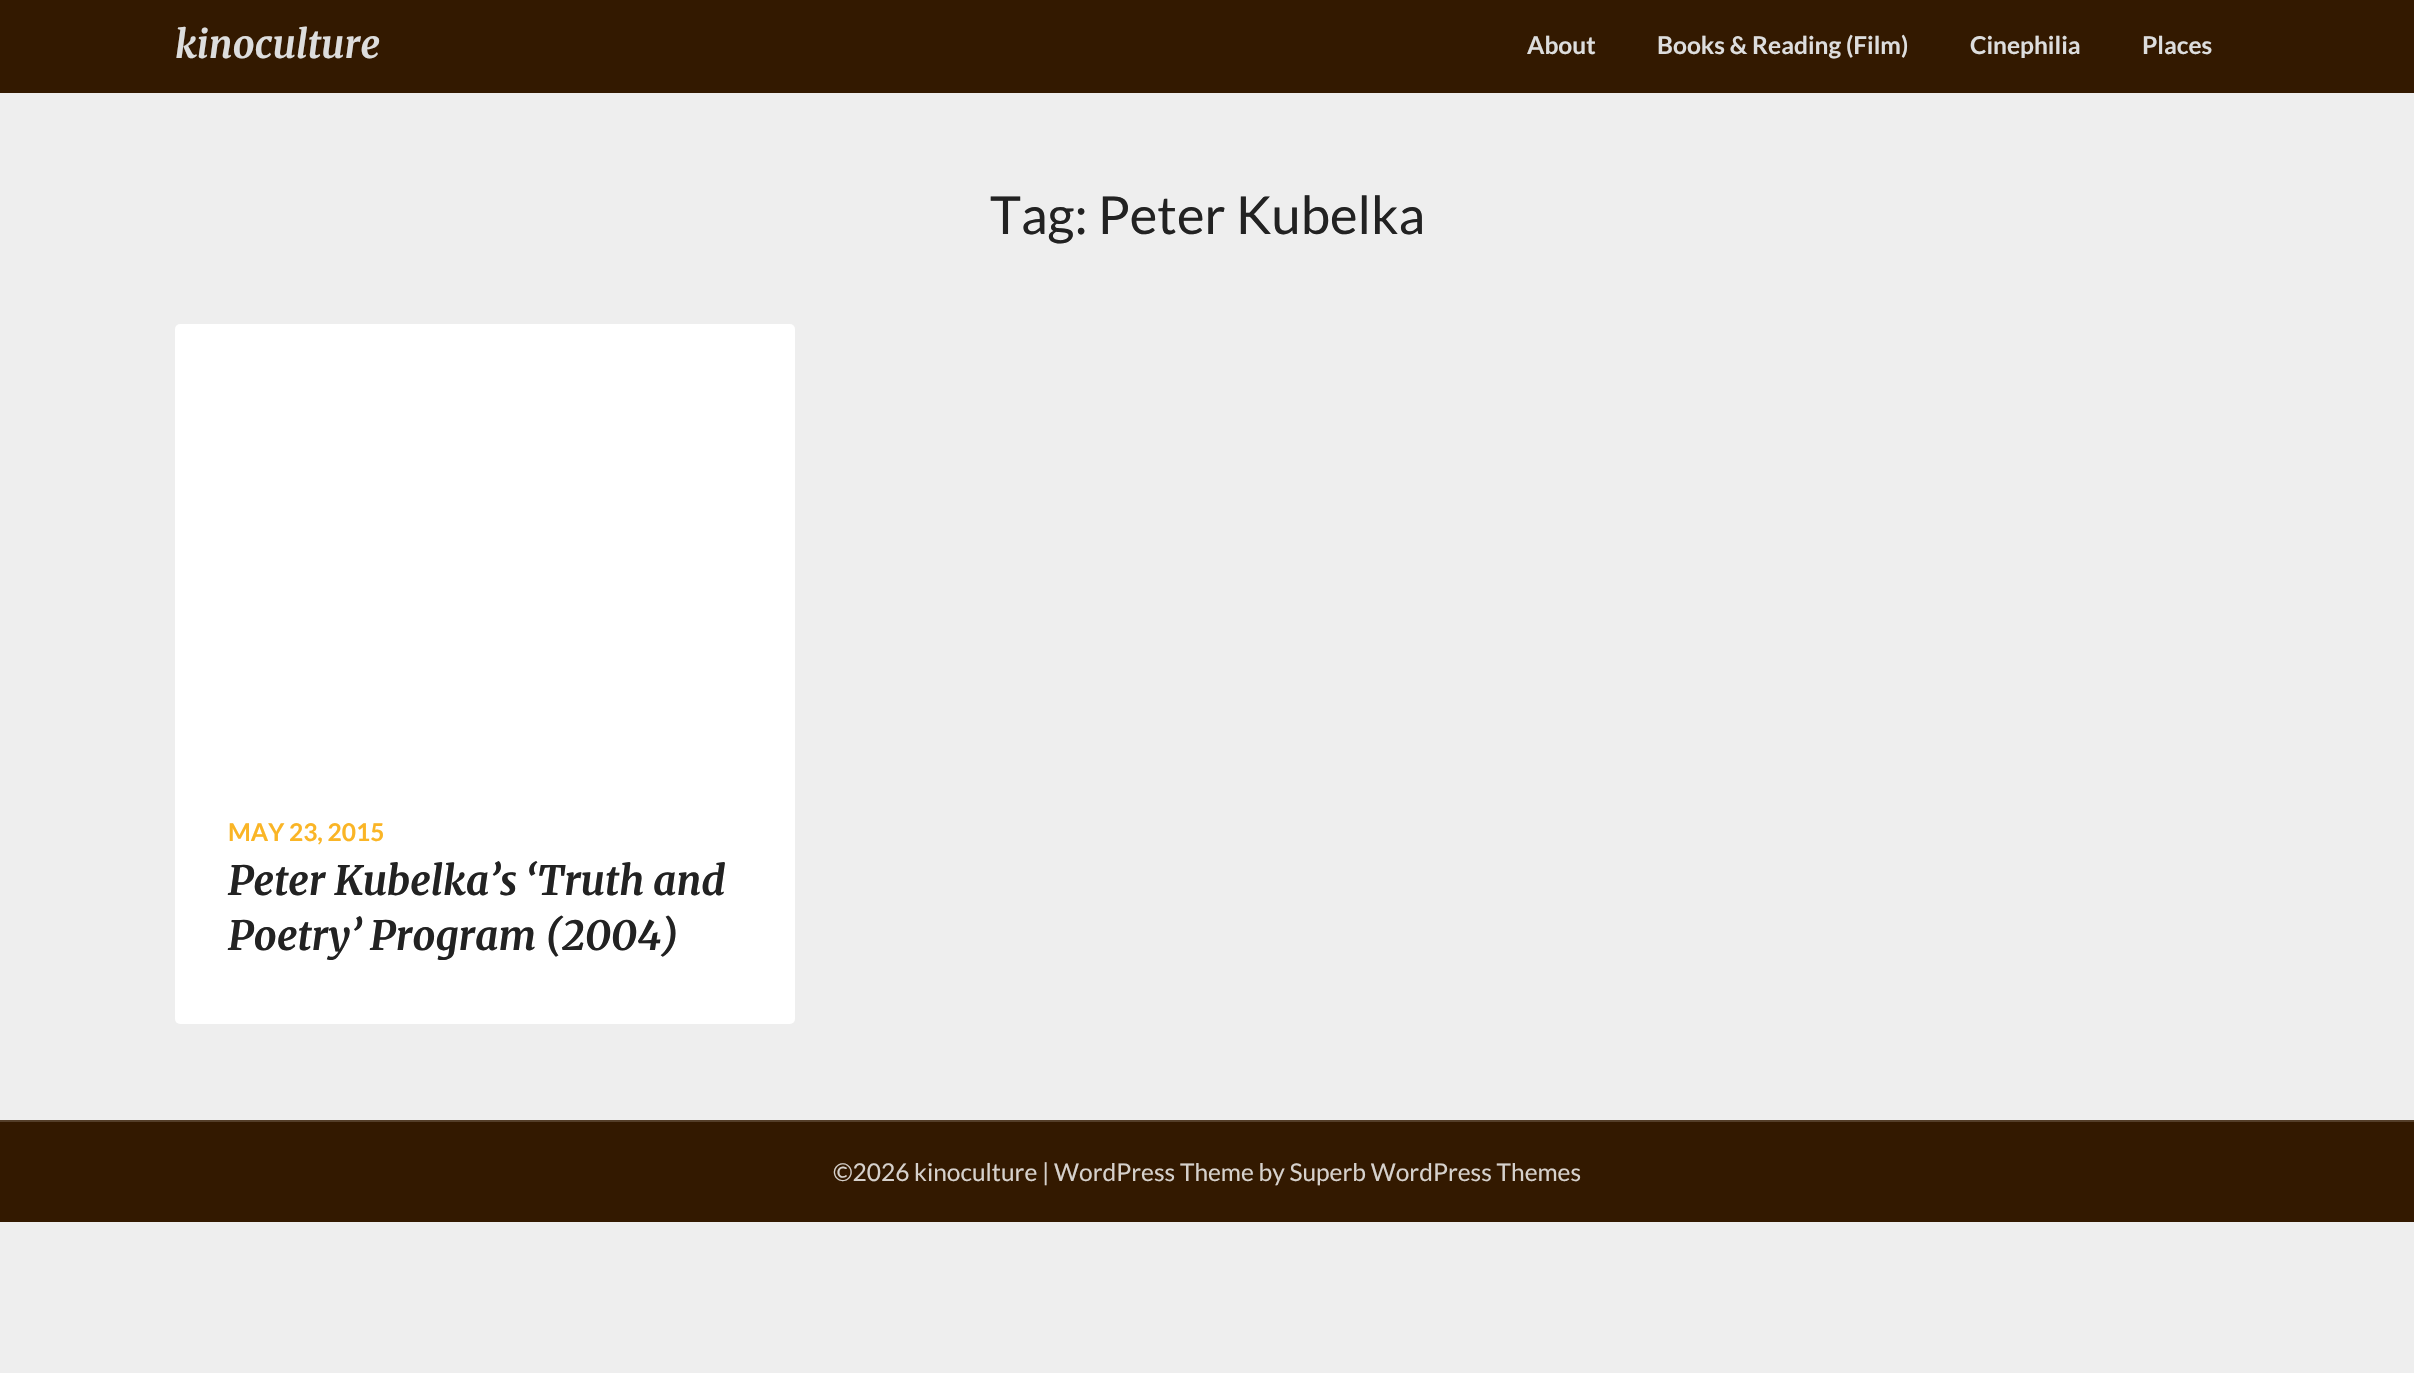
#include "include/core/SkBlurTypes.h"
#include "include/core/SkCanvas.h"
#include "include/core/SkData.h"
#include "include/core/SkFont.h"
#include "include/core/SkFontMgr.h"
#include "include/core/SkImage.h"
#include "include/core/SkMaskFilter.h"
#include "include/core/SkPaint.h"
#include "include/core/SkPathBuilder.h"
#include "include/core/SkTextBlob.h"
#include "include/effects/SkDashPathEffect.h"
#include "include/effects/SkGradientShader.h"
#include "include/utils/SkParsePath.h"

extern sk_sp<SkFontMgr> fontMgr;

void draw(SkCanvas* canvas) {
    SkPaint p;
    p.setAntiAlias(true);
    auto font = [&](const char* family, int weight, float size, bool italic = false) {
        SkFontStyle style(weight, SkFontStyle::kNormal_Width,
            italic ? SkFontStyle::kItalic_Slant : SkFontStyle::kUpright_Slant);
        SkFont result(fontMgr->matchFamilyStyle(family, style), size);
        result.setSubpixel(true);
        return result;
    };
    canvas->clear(0xFFEEEEEE);
    p.setColor(0xFF331900);
    canvas->drawRect(SkRect::MakeLTRB(0, 0, 2414, 93), p);
    auto font1 = font("Merriweather", 700, 38.5f, true);
    p.setColor(0xFFDDDDDD);
    canvas->drawString("kinoculture", 175, 58, font1, p);
    auto font2 = font("Lato", 700, 24.5f);
    {
        const struct { const char* s; float x, y; } items[] = {
            {"About", 1527, 54},
            {"Books & Reading (Film)", 1657, 54},
            {"Cinephilia", 1970, 54},
            {"Places", 2142, 54},
        };
        for (auto [s, x, y] : items) {
            canvas->drawString(s, x, y, font2, p);
        }
    }
    auto font3 = font("Lato", 400, 52.5f);
    p.setColor(0xFF222222);
    canvas->drawString("Tag: Peter Kubelka", 990, 234, font3, p);
    p.setColor(0xFFFFFFFF);
    canvas->drawRoundRect(SkRect::MakeLTRB(175, 324, 795, 1024), 5, 5, p);
    p.setColor(0xFFFAB526);
    canvas->drawString("MAY 23, 2015", 228, 841, font2, p);
    auto font4 = font("Merriweather", 700, 40.25f, true);
    p.setColor(0xFF222222);
    canvas->drawString("Peter Kubelka’s ‘Truth and", 228, 895, font4, p);
    canvas->drawString("Poetry’ Program (2004)", 228, 950, font4, p);
    p.setColor(0xFF331900);
    canvas->drawRect(SkRect::MakeLTRB(0, 1122, 2414, 1222), p);
    p.setColor(0xFF543E29);
    canvas->drawRect(SkRect::MakeLTRB(0, 1120, 2414, 1122), p);
    auto font5 = font("Lato", 400, 24.5f);
    p.setColor(0xFFD6D1CC);
    canvas->drawString("©2026 kinoculture | WordPress Theme by Superb WordPress Themes", 833, 1181, font5, p);
}
